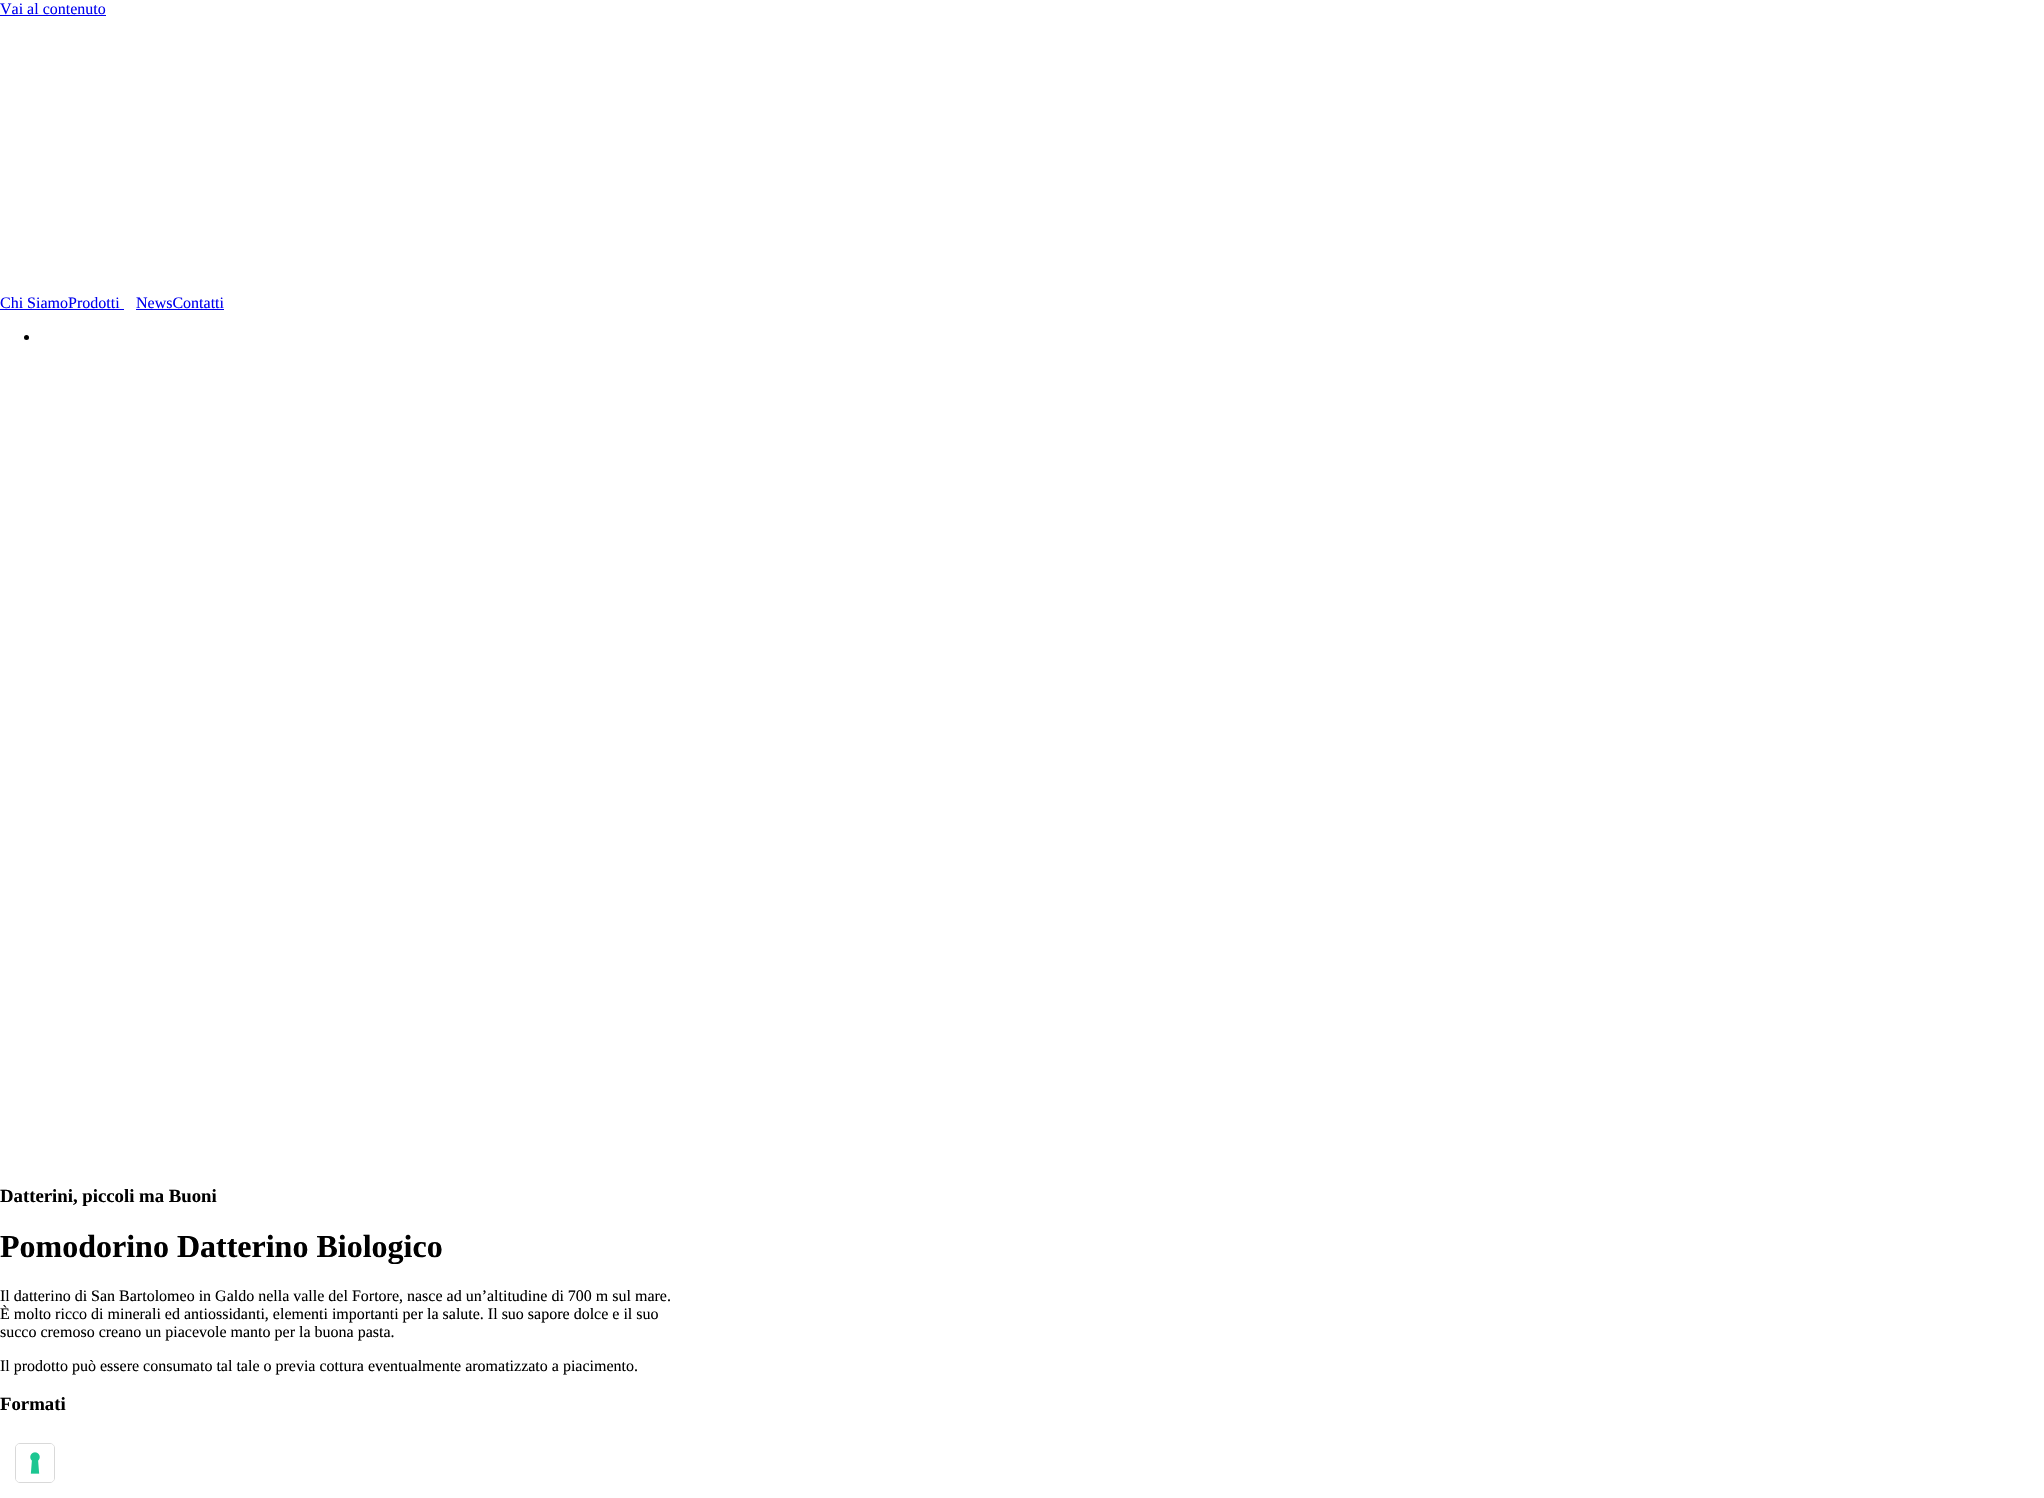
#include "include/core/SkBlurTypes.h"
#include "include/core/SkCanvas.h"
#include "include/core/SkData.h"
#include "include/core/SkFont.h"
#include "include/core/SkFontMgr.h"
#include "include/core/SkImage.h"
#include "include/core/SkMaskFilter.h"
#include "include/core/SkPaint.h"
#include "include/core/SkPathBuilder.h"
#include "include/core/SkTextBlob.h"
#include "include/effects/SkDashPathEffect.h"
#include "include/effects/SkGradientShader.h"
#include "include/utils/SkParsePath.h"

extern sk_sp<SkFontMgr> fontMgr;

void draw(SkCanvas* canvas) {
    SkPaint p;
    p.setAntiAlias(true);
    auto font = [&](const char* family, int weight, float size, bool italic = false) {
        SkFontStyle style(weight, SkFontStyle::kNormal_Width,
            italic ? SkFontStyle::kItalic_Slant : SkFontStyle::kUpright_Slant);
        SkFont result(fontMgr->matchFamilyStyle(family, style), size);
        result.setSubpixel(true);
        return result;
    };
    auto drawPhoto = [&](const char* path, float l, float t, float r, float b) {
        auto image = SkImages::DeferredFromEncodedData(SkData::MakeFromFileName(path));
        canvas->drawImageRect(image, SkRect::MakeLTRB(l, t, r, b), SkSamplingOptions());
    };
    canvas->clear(0xFFFFFFFF);
    auto font1 = font("Liberation Serif", 400, 16);
    p.setColor(0xFF0000EE);
    canvas->drawString("Vai al contenuto", 0, 14, font1, p);
    canvas->drawRect(SkRect::MakeLTRB(0, 15, 106, 16), p);
    canvas->drawString("Chi SiamoProdotti", 0, 308, font1, p);
    canvas->drawRect(SkRect::MakeLTRB(0, 309, 124, 310), p);
    canvas->drawString("NewsContatti", 136, 308, font1, p);
    canvas->drawRect(SkRect::MakeLTRB(136, 309, 224, 310), p);
    p.setColor(0xFF000000);
    canvas->drawCircle(26.5f, 337.5f, 2.5f, p);
    auto font2 = font("Liberation Serif", 700, 18.75f);
    canvas->drawString("Datterini, piccoli ma Buoni", 0, 1202, font2, p);
    auto font3 = font("Liberation Serif", 700, 32);
    canvas->drawString("Pomodorino Datterino Biologico", 0, 1257, font3, p);
    {
        const struct { const char* s; float x, y; } items[] = {
            {"Il datterino di San Bartolomeo in Galdo nella valle del Fortore, nasce ad un’altitudine di 700 m sul mare.", 0, 1301},
            {"È molto ricco di minerali ed antiossidanti, elementi importanti per la salute. Il suo sapore dolce e il suo", 0, 1319},
            {"succo cremoso creano un piacevole manto per la buona pasta.", 0, 1337},
            {"Il prodotto può essere consumato tal tale o previa cottura eventualmente aromatizzato a piacimento.", 0, 1371},
        };
        for (auto [s, x, y] : items) {
            canvas->drawString(s, x, y, font1, p);
        }
    }
    canvas->drawString("Formati", 0, 1410, font2, p);
    p.setStyle(SkPaint::kStroke_Style);
    p.setStrokeWidth(1);
    p.setColor(0xFFD9D9D9);
    canvas->drawRoundRect(SkRect::MakeLTRB(15.5f, 1443.5f, 54.5f, 1482.5f), 4.5f, 4.5f, p);
    p.setStyle(SkPaint::kFill_Style);
    p.setColor(0xFFFFFFFF);
    canvas->drawRoundRect(SkRect::MakeLTRB(16, 1444, 54, 1482), 4, 4, p);
    drawPhoto("media/1.png", 30, 1452, 40, 1474);
}
